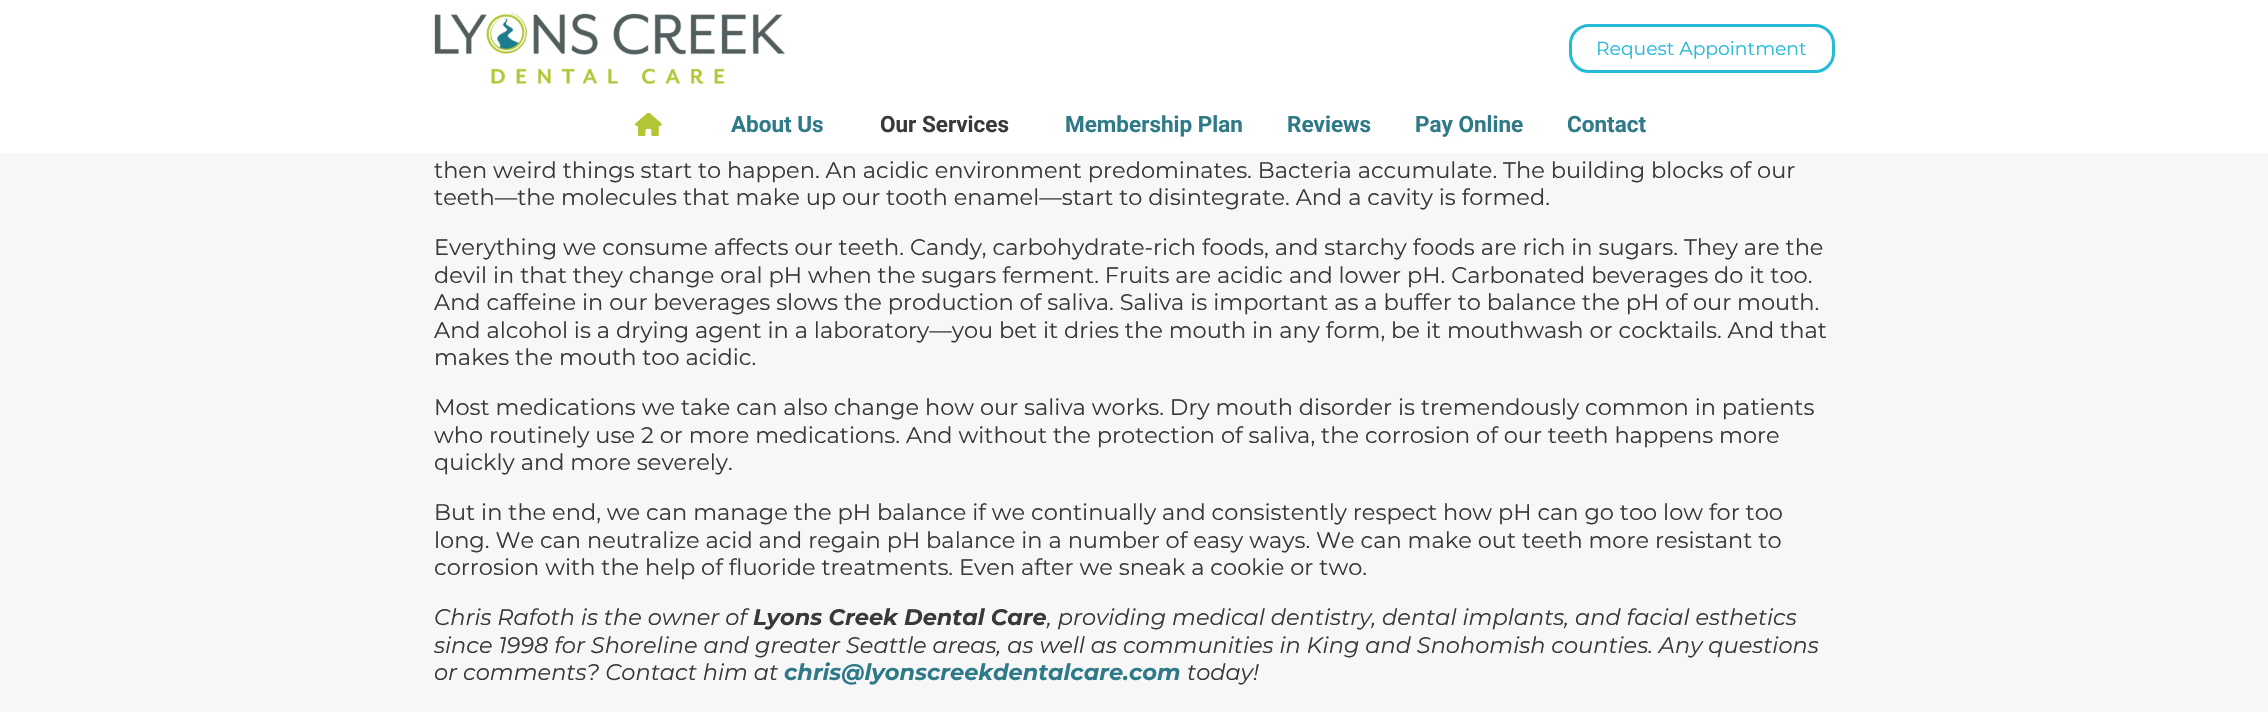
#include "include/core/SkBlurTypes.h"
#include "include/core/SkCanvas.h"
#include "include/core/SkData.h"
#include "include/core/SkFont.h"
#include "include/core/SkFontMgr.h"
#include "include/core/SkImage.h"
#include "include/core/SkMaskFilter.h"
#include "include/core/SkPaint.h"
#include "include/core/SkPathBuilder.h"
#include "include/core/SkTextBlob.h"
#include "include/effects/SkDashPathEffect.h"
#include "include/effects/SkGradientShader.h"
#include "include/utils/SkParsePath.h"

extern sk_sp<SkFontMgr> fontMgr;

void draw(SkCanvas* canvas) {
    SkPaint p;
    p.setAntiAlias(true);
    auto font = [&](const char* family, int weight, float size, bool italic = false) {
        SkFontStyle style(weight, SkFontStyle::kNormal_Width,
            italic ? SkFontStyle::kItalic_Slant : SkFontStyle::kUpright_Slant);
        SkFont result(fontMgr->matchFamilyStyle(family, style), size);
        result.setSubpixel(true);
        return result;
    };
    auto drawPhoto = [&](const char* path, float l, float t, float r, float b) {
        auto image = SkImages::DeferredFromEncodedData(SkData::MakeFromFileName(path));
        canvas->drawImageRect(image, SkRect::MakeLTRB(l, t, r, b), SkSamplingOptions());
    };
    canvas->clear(0xFFF7F7F7);
    p.setColor(0xFFFFFFFF);
    canvas->drawRect(SkRect::MakeLTRB(0, 0, 2268, 153), p);
    drawPhoto("media/1.png", 434, 13, 785, 84);
    p.setStyle(SkPaint::kStroke_Style);
    p.setStrokeWidth(3);
    p.setColor(0xFF25BAD8);
    canvas->drawRoundRect(SkRect::MakeLTRB(1570.5f, 25.5f, 1833.5f, 71.5f), 18.5f, 18.5f, p);
    auto font1 = font("Montserrat", 400, 18.75f);
    p.setStyle(SkPaint::kFill_Style);
    canvas->drawString("Request Appointment", 1596, 55, font1, p);
    drawPhoto("media/2.png", 635, 113, 662, 136);
    auto font2 = font("Roboto", 700, 22.5f);
    p.setColor(0xFF2F7A89);
    canvas->drawString("About Us", 731, 132, font2, p);
    p.setColor(0xFF383938);
    canvas->drawString("Our Services", 880, 132, font2, p);
    p.setColor(0xFF2F7A89);
    {
        const struct { const char* s; float x, y; } items[] = {
            {"Membership Plan", 1065, 132},
            {"Reviews", 1287, 132},
            {"Pay Online", 1415, 132},
            {"Contact", 1567, 132},
        };
        for (auto [s, x, y] : items) {
            canvas->drawString(s, x, y, font2, p);
        }
    }
    auto font3 = font("Montserrat", 400, 22.5f);
    p.setColor(0xFF383938);
    {
        const struct { const char* s; float x, y; } items[] = {
            {"then weird things start to happen. An acidic environment predominates. Bacteria accumulate. The building blocks of our", 434, 178},
            {"teeth—the molecules that make up our tooth enamel—start to disintegrate. And a cavity is formed.", 434, 205},
            {"Everything we consume affects our teeth. Candy, carbohydrate-rich foods, and starchy foods are rich in sugars. They are the", 434, 255},
            {"devil in that they change oral pH when the sugars ferment. Fruits are acidic and lower pH. Carbonated beverages do it too.", 434, 283},
            {"And caffeine in our beverages slows the production of saliva. Saliva is important as a buffer to balance the pH of our mouth.", 434, 310},
            {"And alcohol is a drying agent in a laboratory—you bet it dries the mouth in any form, be it mouthwash or cocktails. And that", 434, 338},
            {"makes the mouth too acidic.", 434, 365},
            {"Most medications we take can also change how our saliva works. Dry mouth disorder is tremendously common in patients", 434, 415},
            {"who routinely use 2 or more medications. And without the protection of saliva, the corrosion of our teeth happens more", 434, 443},
            {"quickly and more severely.", 434, 470},
            {"But in the end, we can manage the pH balance if we continually and consistently respect how pH can go too low for too", 434, 520},
            {"long. We can neutralize acid and regain pH balance in a number of easy ways. We can make out teeth more resistant to", 434, 548},
            {"corrosion with the help of fluoride treatments. Even after we sneak a cookie or two.", 434, 575},
        };
        for (auto [s, x, y] : items) {
            canvas->drawString(s, x, y, font3, p);
        }
    }
    auto font4 = font("Montserrat", 400, 22.5f, true);
    canvas->drawString("Chris Rafoth is the owner of", 434, 625, font4, p);
    auto font5 = font("Montserrat", 700, 22.5f, true);
    canvas->drawString("Lyons Creek Dental Care", 753, 625, font5, p);
    {
        const struct { const char* s; float x, y; } items[] = {
            {", providing medical dentistry, dental implants, and facial esthetics", 1047, 625},
            {"since 1998 for Shoreline and greater Seattle areas, as well as communities in King and Snohomish counties. Any questions", 434, 653},
            {"or comments? Contact him at", 434, 680},
        };
        for (auto [s, x, y] : items) {
            canvas->drawString(s, x, y, font4, p);
        }
    }
    p.setColor(0xFF2F7A89);
    canvas->drawString("chris@lyonscreekdentalcare.com", 784, 680, font5, p);
    p.setColor(0xFF383938);
    canvas->drawString("today!", 1187, 680, font4, p);
}
